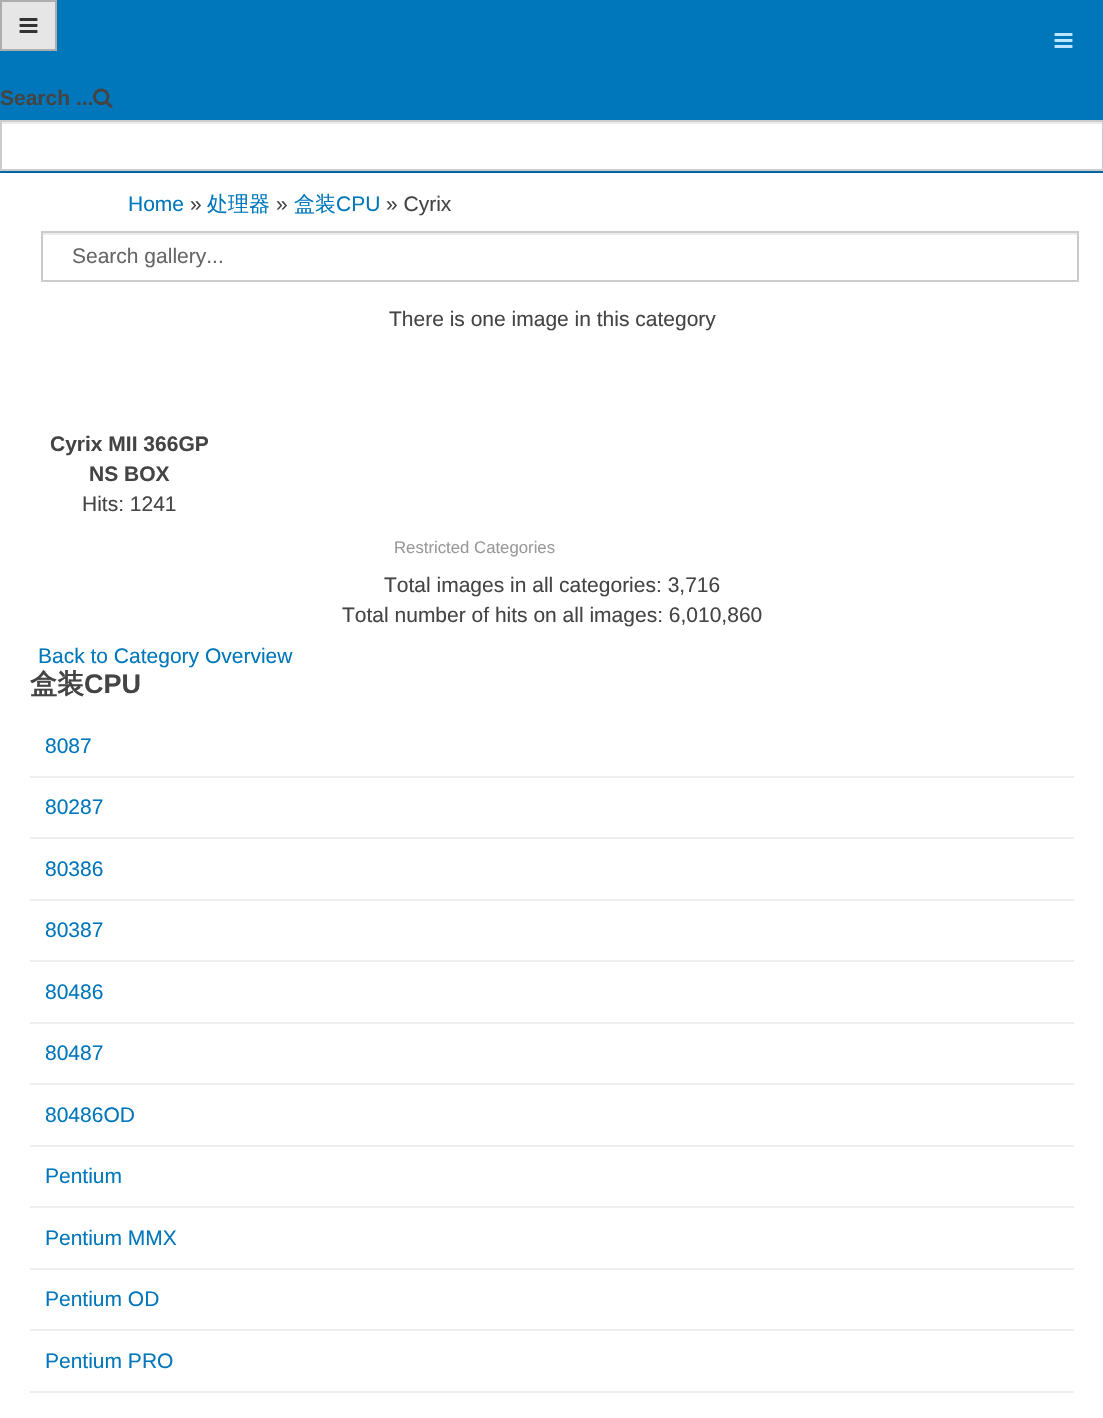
#include "include/core/SkBlurTypes.h"
#include "include/core/SkCanvas.h"
#include "include/core/SkData.h"
#include "include/core/SkFont.h"
#include "include/core/SkFontMgr.h"
#include "include/core/SkImage.h"
#include "include/core/SkMaskFilter.h"
#include "include/core/SkPaint.h"
#include "include/core/SkPathBuilder.h"
#include "include/core/SkTextBlob.h"
#include "include/effects/SkDashPathEffect.h"
#include "include/effects/SkGradientShader.h"
#include "include/utils/SkParsePath.h"

extern sk_sp<SkFontMgr> fontMgr;

void draw(SkCanvas* canvas) {
    SkPaint p;
    p.setAntiAlias(true);
    auto font = [&](const char* family, int weight, float size, bool italic = false) {
        SkFontStyle style(weight, SkFontStyle::kNormal_Width,
            italic ? SkFontStyle::kItalic_Slant : SkFontStyle::kUpright_Slant);
        SkFont result(fontMgr->matchFamilyStyle(family, style), size);
        result.setSubpixel(true);
        return result;
    };
    auto drawPhoto = [&](const char* path, float l, float t, float r, float b) {
        auto image = SkImages::DeferredFromEncodedData(SkData::MakeFromFileName(path));
        canvas->drawImageRect(image, SkRect::MakeLTRB(l, t, r, b), SkSamplingOptions());
    };
    canvas->clear(0xFFFFFFFF);
    p.setColor(0xFF0077BB);
    canvas->drawRect(SkRect::MakeLTRB(0, 0, 1103, 120), p);
    p.setColor(0xFF0067A2);
    canvas->drawRect(SkRect::MakeLTRB(0, 171, 1103, 173), p);
    p.setColor(0xFFE6E6E6);
    canvas->drawRect(SkRect::MakeLTRB(1, 1, 56, 50), p);
    p.setStyle(SkPaint::kStroke_Style);
    p.setStrokeWidth(2);
    p.setColor(0xFFADADAD);
    canvas->drawRect(SkRect::MakeLTRB(1, 1, 56, 50), p);
    drawPhoto("media/1.png", 19, 18, 38, 33);
    drawPhoto("media/2.png", 1054, 33, 1073, 48);
    auto font1 = font("Liberation Sans", 700, 21);
    p.setStyle(SkPaint::kFill_Style);
    p.setColor(0xFF444444);
    canvas->drawString("Search ...", 0, 105, font1, p);
    drawPhoto("media/3.png", 93, 88, 113, 108);
    p.setColor(0xFFECECEC);
    canvas->drawRect(SkRect::MakeLTRB(2, 122, 1103, 124), p);
    p.setStyle(SkPaint::kStroke_Style);
    p.setColor(0xFFCCCCCC);
    canvas->drawRect(SkRect::MakeLTRB(1, 121, 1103, 170), p);
    auto font2 = font("Liberation Sans", 400, 21);
    p.setStyle(SkPaint::kFill_Style);
    p.setColor(0xFF0077BB);
    canvas->drawString("Home", 128, 211, font2, p);
    p.setColor(0xFF444444);
    canvas->drawString("»", 190, 211, font2, p);
    auto font3 = font("WenQuanYi Zen Hei", 500, 21);
    p.setColor(0xFF0077BB);
    canvas->drawString("处理器", 207, 211, font3, p);
    p.setColor(0xFF444444);
    canvas->drawString("»", 276, 211, font2, p);
    p.setColor(0xFF0077BB);
    canvas->drawString("盒装", 294, 211, font3, p);
    canvas->drawString("CPU", 336, 211, font2, p);
    p.setColor(0xFF444444);
    canvas->drawString("» Cyrix", 386, 211, font2, p);
    p.setColor(0xFFECECEC);
    canvas->drawRect(SkRect::MakeLTRB(42, 233, 1077, 235), p);
    p.setStyle(SkPaint::kStroke_Style);
    p.setColor(0xFFCCCCCC);
    canvas->drawRect(SkRect::MakeLTRB(42, 232, 1078, 281), p);
    p.setStyle(SkPaint::kFill_Style);
    p.setColor(0xFF666666);
    canvas->drawString("Search gallery...", 72, 263, font2, p);
    p.setColor(0xFF444444);
    canvas->drawString("There is one image in this category", 389, 326, font2, p);
    canvas->drawString("Cyrix MII 366GP", 50, 451, font1, p);
    canvas->drawString("NS BOX", 89, 481, font1, p);
    canvas->drawString("Hits: 1241", 82, 511, font2, p);
    auto font4 = font("Liberation Sans", 400, 16.75f);
    p.setColor(0xFF999999);
    canvas->drawString("Restricted Categories", 394, 553, font4, p);
    p.setColor(0xFF444444);
    canvas->drawString("Total images in all categories: 3,716", 384, 592, font2, p);
    canvas->drawString("Total number of hits on all images: 6,010,860", 342, 622, font2, p);
    p.setColor(0xFF0077BB);
    canvas->drawString("Back to Category Overview", 38, 663, font2, p);
    auto font5 = font("WenQuanYi Zen Hei", 700, 27);
    p.setColor(0xFF444444);
    canvas->drawString("盒装", 30, 693, font5, p);
    auto font6 = font("Liberation Sans", 700, 27);
    canvas->drawString("CPU", 84, 693, font6, p);
    p.setColor(0xFF0077BB);
    canvas->drawString("8087", 45, 753, font2, p);
    p.setColor(0xFFEEEEEE);
    canvas->drawRect(SkRect::MakeLTRB(30, 776, 1074, 778), p);
    p.setColor(0xFF0077BB);
    canvas->drawString("80287", 45, 814, font2, p);
    p.setColor(0xFFEEEEEE);
    canvas->drawRect(SkRect::MakeLTRB(30, 837, 1074, 839), p);
    p.setColor(0xFF0077BB);
    canvas->drawString("80386", 45, 876, font2, p);
    p.setColor(0xFFEEEEEE);
    canvas->drawRect(SkRect::MakeLTRB(30, 899, 1074, 901), p);
    p.setColor(0xFF0077BB);
    canvas->drawString("80387", 45, 937, font2, p);
    p.setColor(0xFFEEEEEE);
    canvas->drawRect(SkRect::MakeLTRB(30, 960, 1074, 962), p);
    p.setColor(0xFF0077BB);
    canvas->drawString("80486", 45, 999, font2, p);
    p.setColor(0xFFEEEEEE);
    canvas->drawRect(SkRect::MakeLTRB(30, 1022, 1074, 1024), p);
    p.setColor(0xFF0077BB);
    canvas->drawString("80487", 45, 1060, font2, p);
    p.setColor(0xFFEEEEEE);
    canvas->drawRect(SkRect::MakeLTRB(30, 1083, 1074, 1085), p);
    p.setColor(0xFF0077BB);
    canvas->drawString("80486OD", 45, 1122, font2, p);
    p.setColor(0xFFEEEEEE);
    canvas->drawRect(SkRect::MakeLTRB(30, 1145, 1074, 1147), p);
    p.setColor(0xFF0077BB);
    canvas->drawString("Pentium", 45, 1183, font2, p);
    p.setColor(0xFFEEEEEE);
    canvas->drawRect(SkRect::MakeLTRB(30, 1206, 1074, 1208), p);
    p.setColor(0xFF0077BB);
    canvas->drawString("Pentium MMX", 45, 1245, font2, p);
    p.setColor(0xFFEEEEEE);
    canvas->drawRect(SkRect::MakeLTRB(30, 1268, 1074, 1270), p);
    p.setColor(0xFF0077BB);
    canvas->drawString("Pentium OD", 45, 1306, font2, p);
    p.setColor(0xFFEEEEEE);
    canvas->drawRect(SkRect::MakeLTRB(30, 1329, 1074, 1331), p);
    p.setColor(0xFF0077BB);
    canvas->drawString("Pentium PRO", 45, 1368, font2, p);
    p.setColor(0xFFEEEEEE);
    canvas->drawRect(SkRect::MakeLTRB(30, 1391, 1074, 1393), p);
}
